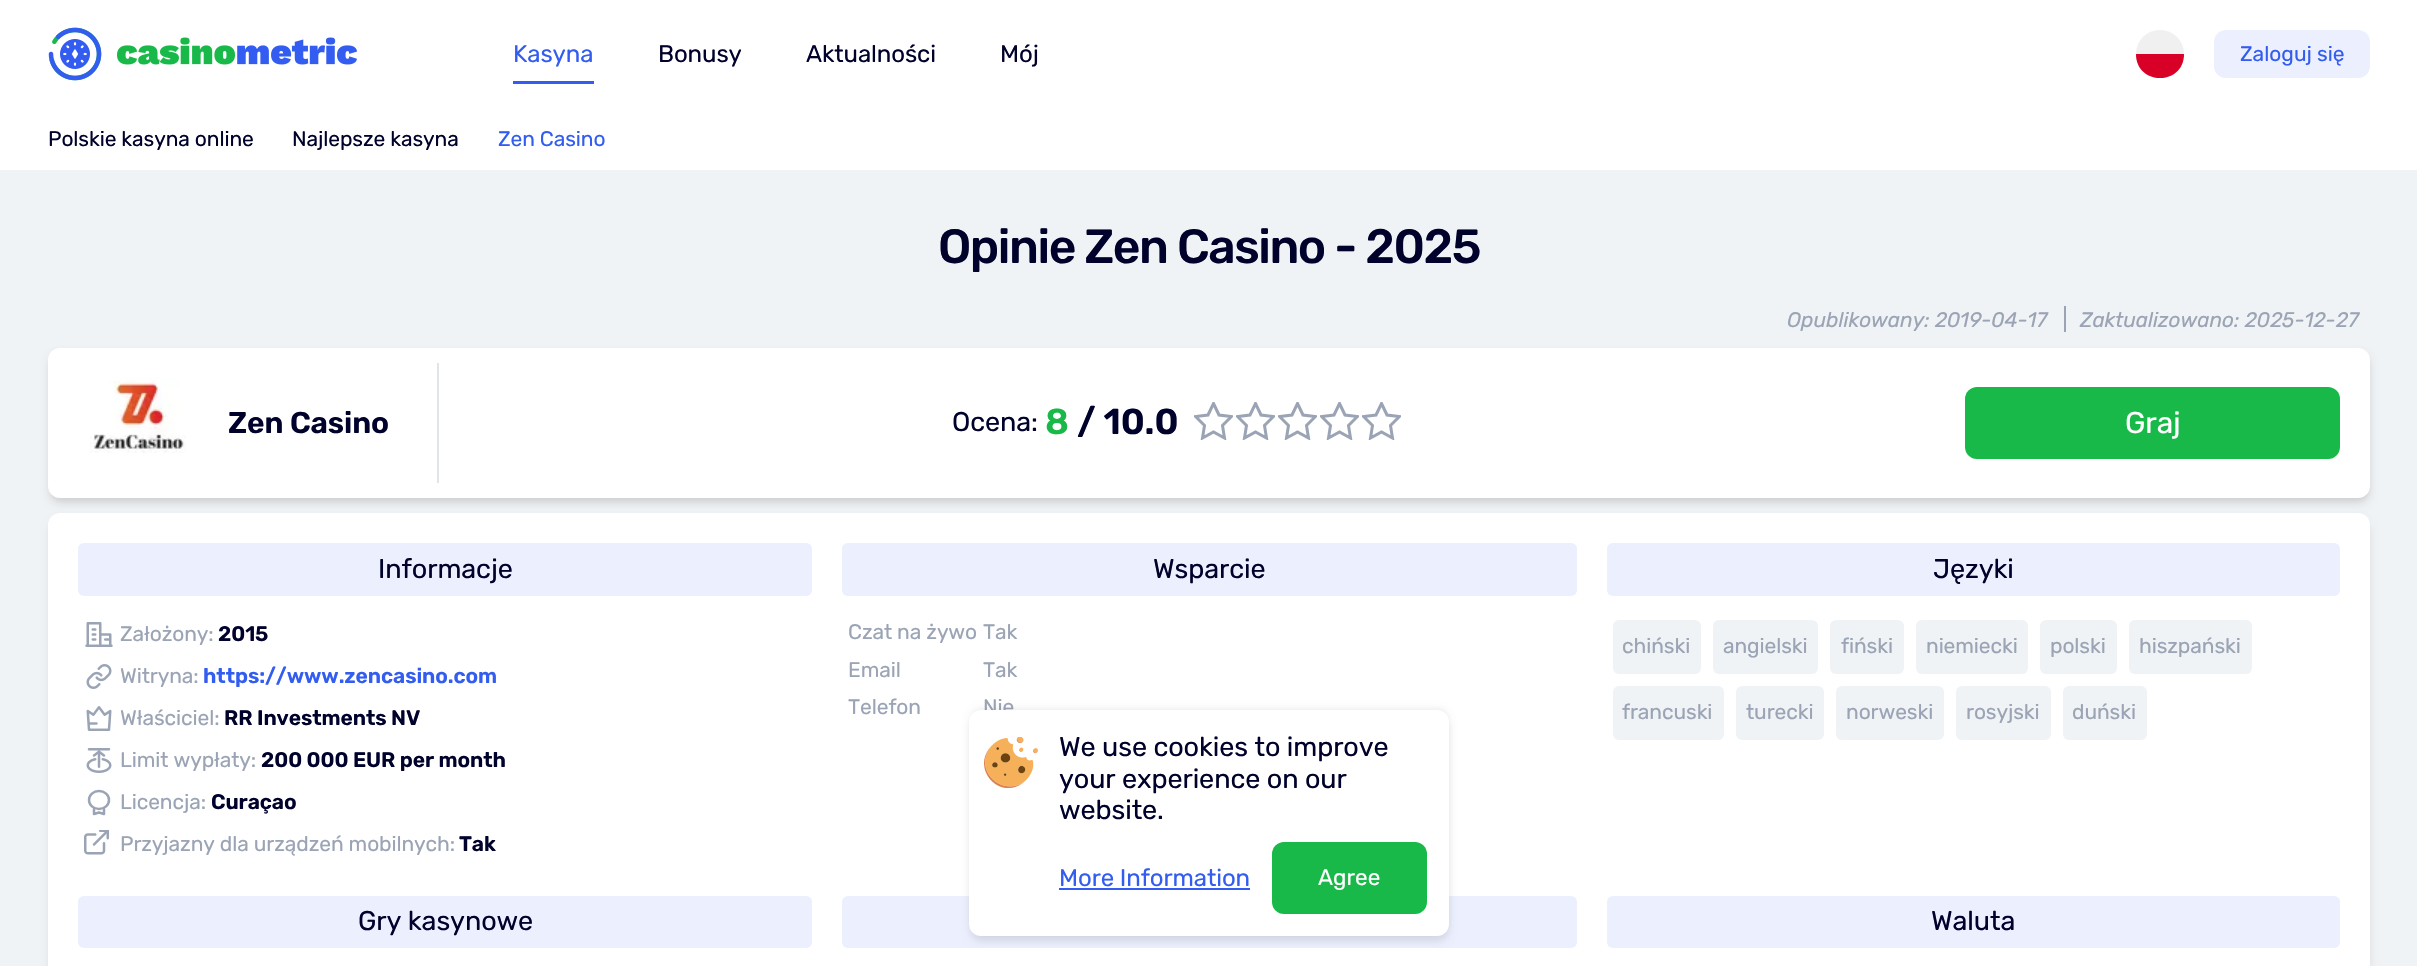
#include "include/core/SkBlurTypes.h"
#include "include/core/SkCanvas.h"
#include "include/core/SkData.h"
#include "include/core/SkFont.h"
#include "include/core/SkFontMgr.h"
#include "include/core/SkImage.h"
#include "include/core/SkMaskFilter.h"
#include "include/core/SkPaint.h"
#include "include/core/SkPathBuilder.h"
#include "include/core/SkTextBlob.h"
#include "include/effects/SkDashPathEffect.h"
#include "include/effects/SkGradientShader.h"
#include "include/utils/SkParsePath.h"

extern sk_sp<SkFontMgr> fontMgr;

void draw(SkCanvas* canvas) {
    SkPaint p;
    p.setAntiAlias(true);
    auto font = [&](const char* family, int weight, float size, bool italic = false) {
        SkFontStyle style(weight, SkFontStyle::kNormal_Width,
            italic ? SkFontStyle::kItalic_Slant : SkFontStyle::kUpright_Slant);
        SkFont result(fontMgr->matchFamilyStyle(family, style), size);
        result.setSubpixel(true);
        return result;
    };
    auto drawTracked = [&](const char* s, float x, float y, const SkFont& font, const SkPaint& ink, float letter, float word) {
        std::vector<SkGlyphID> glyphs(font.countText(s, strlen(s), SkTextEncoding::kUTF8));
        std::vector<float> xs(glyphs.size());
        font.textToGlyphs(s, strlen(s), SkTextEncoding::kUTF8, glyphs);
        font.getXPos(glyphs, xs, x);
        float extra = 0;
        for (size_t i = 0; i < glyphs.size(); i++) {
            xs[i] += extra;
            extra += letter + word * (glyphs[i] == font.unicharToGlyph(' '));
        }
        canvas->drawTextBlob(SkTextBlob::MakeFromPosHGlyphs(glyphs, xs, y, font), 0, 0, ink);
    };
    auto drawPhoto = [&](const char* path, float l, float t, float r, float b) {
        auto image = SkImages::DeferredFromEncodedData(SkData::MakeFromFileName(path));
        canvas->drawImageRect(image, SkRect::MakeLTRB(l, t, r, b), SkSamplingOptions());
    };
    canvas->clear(0xFFF0F3F5);
    p.setColor(0xFFFFFFFF);
    canvas->drawRect(SkRect::MakeLTRB(0, 0, 2417, 170), p);
    drawPhoto("media/1.png", 48, 27, 357, 81);
    p.setColor(0xFF335DF0);
    canvas->drawRect(SkRect::MakeLTRB(513, 81, 594, 84), p);
    auto font1 = font("Rubik", 400, 24);
    drawTracked("Kasyna", 513, 62, font1, p, -0.1f, 0);
    p.setColor(0xFF00022C);
    {
        const struct { const char* s; float x, y; } items[] = {
            {"Bonusy", 658, 62},
            {"Aktualności", 806, 62},
            {"Mój", 1000, 62},
        };
        for (auto [s, x, y] : items) {
            drawTracked(s, x, y, font1, p, -0.1f, 0);
        }
    }
    p.setColor(0xFFF0F0F0);
    canvas->drawCircle(2160, 54, 24, p);
    p.setColor(0xFFD80027);
    canvas->drawPath(SkPathBuilder().moveTo(2184, 54).lineTo(2136, 54).cubicTo(2136, 86, 2184, 86, 2184, 54).close().detach(), p);
    p.setColor(0xFFEBEFFE);
    canvas->drawRoundRect(SkRect::MakeLTRB(2214, 30, 2370, 78), 12, 12, p);
    auto font2 = font("Rubik", 400, 21);
    p.setColor(0xFF335DF0);
    canvas->drawString("Zaloguj się", 2240, 61, font2, p);
    p.setColor(0xFF00022C);
    drawTracked("Polskie kasyna online", 48, 146, font2, p, -0.1f, 0);
    drawTracked("Najlepsze kasyna", 292, 146, font2, p, -0.1f, 0);
    p.setColor(0xFF335DF0);
    drawTracked("Zen Casino", 498, 146, font2, p, -0.1f, 0);
    auto font3 = font("Rubik", 500, 48);
    p.setColor(0xFF00022C);
    drawTracked("Opinie Zen Casino - 2025", 938, 263, font3, p, -1.5f, 0);
    auto font4 = font("Rubik", 300, 21, true);
    p.setColor(0xFF9BA4B5);
    drawTracked("Opublikowany: 2019-04-17", 1787, 327, font4, p, -0.1f, 0);
    canvas->drawRect(SkRect::MakeLTRB(2064, 306, 2066, 332), p);
    drawTracked("Zaktualizowano: 2025-12-27", 2080, 327, font4, p, -0.1f, 0);
    p.setColor(0x0F000000);
    p.setMaskFilter(SkMaskFilter::MakeBlur(kNormal_SkBlurStyle, 3));
    canvas->drawRoundRect(SkRect::MakeLTRB(50, 353, 2369, 500), 11, 11, p);
    p.setMaskFilter(nullptr);
    p.setColor(0x1A000000);
    p.setMaskFilter(SkMaskFilter::MakeBlur(kNormal_SkBlurStyle, 4.5f));
    canvas->drawRoundRect(SkRect::MakeLTRB(50, 356, 2369, 503), 11, 11, p);
    p.setMaskFilter(nullptr);
    p.setColor(0xFFFFFFFF);
    canvas->drawRoundRect(SkRect::MakeLTRB(48, 348, 2370, 498), 12, 12, p);
    p.setColor(0xFFE1E4E9);
    canvas->drawRect(SkRect::MakeLTRB(437, 363, 439, 483), p);
    drawPhoto("media/2.png", 90, 377, 186, 453);
    auto font5 = font("Rubik", 600, 30);
    p.setColor(0xFF00022C);
    drawTracked("Zen Casino", 228, 433, font5, p, -0.1f, 0);
    auto font6 = font("Rubik", 400, 27);
    drawTracked("Ocena:", 952, 431, font6, p, -0.1f, 0);
    auto font7 = font("Rubik", 600, 36);
    p.setColor(0xFF18B948);
    drawTracked("8", 1045, 434, font7, p, -0.1f, 0);
    p.setColor(0xFF00022C);
    drawTracked("/ 10.0", 1077, 434, font7, p, -0.1f, 0);
    canvas->save();
    canvas->clipRect(SkRect::MakeLTRB(1194, 402, 1233, 440));
    p.setStyle(SkPaint::kStroke_Style);
    p.setStrokeWidth(3);
    p.setColor(0xFF9BA4B5);
    canvas->drawPath(SkPathBuilder().moveTo(1213.5f, 403.5f).lineTo(1219, 415).lineTo(1231.5f, 416.5f).lineTo(1222.5f, 425.5f).lineTo(1224.5f, 438).lineTo(1213.5f, 432).lineTo(1202.5f, 438).lineTo(1204.5f, 425.5f).lineTo(1195.5f, 416.5f).lineTo(1208, 415).close().detach(), p);
    canvas->restore();
    canvas->save();
    canvas->clipRect(SkRect::MakeLTRB(1236, 402, 1275, 440));
    canvas->drawPath(SkPathBuilder().moveTo(1255.5f, 403.5f).lineTo(1261, 415).lineTo(1273.5f, 416.5f).lineTo(1264.5f, 425.5f).lineTo(1266.5f, 438).lineTo(1255.5f, 432).lineTo(1244.5f, 438).lineTo(1246.5f, 425.5f).lineTo(1237.5f, 416.5f).lineTo(1250, 415).close().detach(), p);
    canvas->restore();
    canvas->save();
    canvas->clipRect(SkRect::MakeLTRB(1278, 402, 1317, 440));
    canvas->drawPath(SkPathBuilder().moveTo(1297.5f, 403.5f).lineTo(1303, 415).lineTo(1315.5f, 416.5f).lineTo(1306.5f, 425.5f).lineTo(1308.5f, 438).lineTo(1297.5f, 432).lineTo(1286.5f, 438).lineTo(1288.5f, 425.5f).lineTo(1279.5f, 416.5f).lineTo(1292, 415).close().detach(), p);
    canvas->restore();
    canvas->save();
    canvas->clipRect(SkRect::MakeLTRB(1320, 402, 1359, 440));
    canvas->drawPath(SkPathBuilder().moveTo(1339.5f, 403.5f).lineTo(1345, 415).lineTo(1357.5f, 416.5f).lineTo(1348.5f, 425.5f).lineTo(1350.5f, 438).lineTo(1339.5f, 432).lineTo(1328.5f, 438).lineTo(1330.5f, 425.5f).lineTo(1321.5f, 416.5f).lineTo(1334, 415).close().detach(), p);
    canvas->restore();
    canvas->save();
    canvas->clipRect(SkRect::MakeLTRB(1362, 402, 1401, 440));
    canvas->drawPath(SkPathBuilder().moveTo(1381.5f, 403.5f).lineTo(1387, 415).lineTo(1399.5f, 416.5f).lineTo(1390.5f, 425.5f).lineTo(1392.5f, 438).lineTo(1381.5f, 432).lineTo(1370.5f, 438).lineTo(1372.5f, 425.5f).lineTo(1363.5f, 416.5f).lineTo(1376, 415).close().detach(), p);
    canvas->restore();
    p.setStyle(SkPaint::kFill_Style);
    p.setColor(0xFF18B948);
    canvas->drawRoundRect(SkRect::MakeLTRB(1965, 387, 2340, 459), 12, 12, p);
    auto font8 = font("Rubik", 400, 30);
    p.setColor(0xFFFFFFFF);
    drawTracked("Graj", 2125, 433, font8, p, -0.1f, 0);
    p.setColor(0x1A000000);
    p.setMaskFilter(SkMaskFilter::MakeBlur(kNormal_SkBlurStyle, 4.5f));
    canvas->drawRoundRect(SkRect::MakeLTRB(50, 521, 2369, 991), 11, 11, p);
    p.setMaskFilter(nullptr);
    p.setColor(0xFFFFFFFF);
    canvas->drawRoundRect(SkRect::MakeLTRB(48, 513, 2370, 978), 12, 12, p);
    p.setColor(0xFFEBEFFE);
    canvas->drawRoundRect(SkRect::MakeLTRB(78, 543, 812, 596), 6, 6, p);
    p.setColor(0xFF00022C);
    drawTracked("Informacje", 378, 578, font6, p, -0.1f, 0);
    drawPhoto("media/3.png", 85, 622, 113, 647);
    p.setColor(0xFF9BA4B5);
    drawTracked("Założony:", 120, 641, font2, p, -0.1f, 0);
    auto font9 = font("Rubik", 600, 21);
    p.setColor(0xFF00022C);
    drawTracked("2015", 218, 641, font9, p, -0.1f, 0);
    drawPhoto("media/4.png", 86, 664, 112, 689);
    p.setColor(0xFF9BA4B5);
    drawTracked("Witryna:", 120, 683, font2, p, -0.1f, 0);
    p.setColor(0xFF335DF0);
    drawTracked("https://www.zencasino.com", 203, 683, font9, p, -0.1f, 0);
    drawPhoto("media/5.png", 86, 706, 112, 731);
    p.setColor(0xFF9BA4B5);
    drawTracked("Właściciel:", 120, 725, font2, p, -0.1f, 0);
    p.setColor(0xFF00022C);
    drawTracked("RR Investments NV", 224, 725, font9, p, -0.1f, 0);
    drawPhoto("media/6.png", 86, 748, 112, 773);
    p.setColor(0xFF9BA4B5);
    drawTracked("Limit wypłaty:", 120, 767, font2, p, -0.1f, 0);
    p.setColor(0xFF00022C);
    drawTracked("200 000 EUR per month", 261, 767, font9, p, -0.1f, 0);
    p.setStyle(SkPaint::kStroke_Style);
    p.setStrokeWidth(2.5f);
    p.setColor(0xFF9BA4B5);
    canvas->drawOval(SkRect::MakeLTRB(89, 791, 109, 809), p);
    p.setStrokeCap(SkPaint::kRound_Cap);
    p.setStrokeJoin(SkPaint::kRound_Join);
    canvas->drawPath(SkPathBuilder().moveTo(94, 809).lineTo(94, 814).lineTo(99, 812.5f).lineTo(104, 814).lineTo(104, 809).detach(), p);
    p.setStyle(SkPaint::kFill_Style);
    drawTracked("Licencja:", 120, 809, font2, p, -0.1f, 0);
    p.setColor(0xFF00022C);
    drawTracked("Curaçao", 211, 809, font9, p, -0.1f, 0);
    drawPhoto("media/7.png", 84, 830, 109, 855);
    p.setColor(0xFF9BA4B5);
    drawTracked("Przyjazny dla urządzeń mobilnych:", 120, 851, font2, p, -0.1f, 0);
    p.setColor(0xFF00022C);
    drawTracked("Tak", 459, 851, font9, p, -0.1f, 0);
    p.setColor(0xFFEBEFFE);
    canvas->drawRoundRect(SkRect::MakeLTRB(842, 543, 1577, 596), 6, 6, p);
    p.setColor(0xFF00022C);
    drawTracked("Wsparcie", 1153, 578, font6, p, -0.1f, 0);
    p.setColor(0xFF9BA4B5);
    {
        const struct { const char* s; float x, y; } items[] = {
            {"Czat na żywo", 848, 639},
            {"Tak", 983, 639},
            {"Email", 848, 677},
            {"Tak", 983, 677},
            {"Telefon", 848, 714},
            {"Nie", 983, 714},
        };
        for (auto [s, x, y] : items) {
            drawTracked(s, x, y, font2, p, -0.1f, 0);
        }
    }
    p.setColor(0xFFEBEFFE);
    canvas->drawRoundRect(SkRect::MakeLTRB(1607, 543, 2340, 596), 6, 6, p);
    p.setColor(0xFF00022C);
    drawTracked("Języki", 1933, 578, font6, p, -0.1f, 0);
    p.setColor(0xFFF0F3F5);
    canvas->drawRoundRect(SkRect::MakeLTRB(1613, 620, 1701, 674), 6, 6, p);
    p.setColor(0xFF9BA4B5);
    drawTracked("chiński", 1622, 653, font2, p, -0.1f, 0);
    p.setColor(0xFFF0F3F5);
    canvas->drawRoundRect(SkRect::MakeLTRB(1713, 620, 1818, 674), 6, 6, p);
    p.setColor(0xFF9BA4B5);
    drawTracked("angielski", 1723, 653, font2, p, -0.1f, 0);
    p.setColor(0xFFF0F3F5);
    canvas->drawRoundRect(SkRect::MakeLTRB(1830, 620, 1904, 674), 6, 6, p);
    p.setColor(0xFF9BA4B5);
    drawTracked("fiński", 1841, 653, font2, p, -0.1f, 0);
    p.setColor(0xFFF0F3F5);
    canvas->drawRoundRect(SkRect::MakeLTRB(1916, 620, 2028, 674), 6, 6, p);
    p.setColor(0xFF9BA4B5);
    drawTracked("niemiecki", 1926, 653, font2, p, -0.1f, 0);
    p.setColor(0xFFF0F3F5);
    canvas->drawRoundRect(SkRect::MakeLTRB(2040, 620, 2117, 674), 6, 6, p);
    p.setColor(0xFF9BA4B5);
    drawTracked("polski", 2050, 653, font2, p, -0.1f, 0);
    p.setColor(0xFFF0F3F5);
    canvas->drawRoundRect(SkRect::MakeLTRB(2129, 620, 2252, 674), 6, 6, p);
    p.setColor(0xFF9BA4B5);
    drawTracked("hiszpański", 2139, 653, font2, p, -0.1f, 0);
    p.setColor(0xFFF0F3F5);
    canvas->drawRoundRect(SkRect::MakeLTRB(1613, 686, 1724, 740), 6, 6, p);
    p.setColor(0xFF9BA4B5);
    drawTracked("francuski", 1622, 719, font2, p, -0.1f, 0);
    p.setColor(0xFFF0F3F5);
    canvas->drawRoundRect(SkRect::MakeLTRB(1736, 686, 1824, 740), 6, 6, p);
    p.setColor(0xFF9BA4B5);
    drawTracked("turecki", 1746, 719, font2, p, -0.1f, 0);
    p.setColor(0xFFF0F3F5);
    canvas->drawRoundRect(SkRect::MakeLTRB(1836, 686, 1944, 740), 6, 6, p);
    p.setColor(0xFF9BA4B5);
    drawTracked("norweski", 1846, 719, font2, p, -0.1f, 0);
    p.setColor(0xFFF0F3F5);
    canvas->drawRoundRect(SkRect::MakeLTRB(1956, 686, 2051, 740), 6, 6, p);
    p.setColor(0xFF9BA4B5);
    drawTracked("rosyjski", 1966, 719, font2, p, -0.1f, 0);
    p.setColor(0xFFF0F3F5);
    canvas->drawRoundRect(SkRect::MakeLTRB(2063, 686, 2147, 740), 6, 6, p);
    p.setColor(0xFF9BA4B5);
    drawTracked("duński", 2072, 719, font2, p, -0.1f, 0);
    p.setColor(0xFFEBEFFE);
    canvas->drawRoundRect(SkRect::MakeLTRB(78, 896, 812, 948), 6, 6, p);
    p.setColor(0xFF00022C);
    drawTracked("Gry kasynowe", 358, 930, font6, p, -0.1f, 0);
    p.setColor(0xFFEBEFFE);
    canvas->drawRoundRect(SkRect::MakeLTRB(842, 896, 1577, 948), 6, 6, p);
    canvas->drawRoundRect(SkRect::MakeLTRB(1607, 896, 2340, 948), 6, 6, p);
    p.setColor(0xFF00022C);
    drawTracked("Waluta", 1931, 930, font6, p, -0.1f, 0);
    p.setColor(0x0F000000);
    p.setMaskFilter(SkMaskFilter::MakeBlur(kNormal_SkBlurStyle, 3));
    canvas->drawRoundRect(SkRect::MakeLTRB(971, 708, 1448, 932), 11, 11, p);
    p.setMaskFilter(nullptr);
    p.setColor(0x1A000000);
    p.setMaskFilter(SkMaskFilter::MakeBlur(kNormal_SkBlurStyle, 4.5f));
    canvas->drawRoundRect(SkRect::MakeLTRB(971, 717, 1448, 941), 11, 11, p);
    p.setMaskFilter(nullptr);
    p.setColor(0xFFFFFFFF);
    canvas->drawRoundRect(SkRect::MakeLTRB(969, 710, 1449, 936), 12, 12, p);
    drawPhoto("media/8.png", 984, 737, 1038, 788);
    p.setColor(0xFF00022C);
    {
        const struct { const char* s; float x, y; } items[] = {
            {"We use cookies to improve", 1059, 756},
            {"your experience on our", 1059, 788},
            {"website.", 1059, 819},
        };
        for (auto [s, x, y] : items) {
            drawTracked(s, x, y, font6, p, -0.1f, 0);
        }
    }
    p.setColor(0xFF335DF0);
    drawTracked("More Information", 1059, 886, font1, p, -0.1f, 0);
    canvas->drawRect(SkRect::MakeLTRB(1059, 888, 1250, 890), p);
    p.setColor(0xFF18B948);
    canvas->drawRoundRect(SkRect::MakeLTRB(1272, 842, 1427, 914), 12, 12, p);
    auto font10 = font("Rubik", 400, 22.5f);
    p.setColor(0xFFFFFFFF);
    canvas->drawString("Agree", 1318, 885, font10, p);
}
